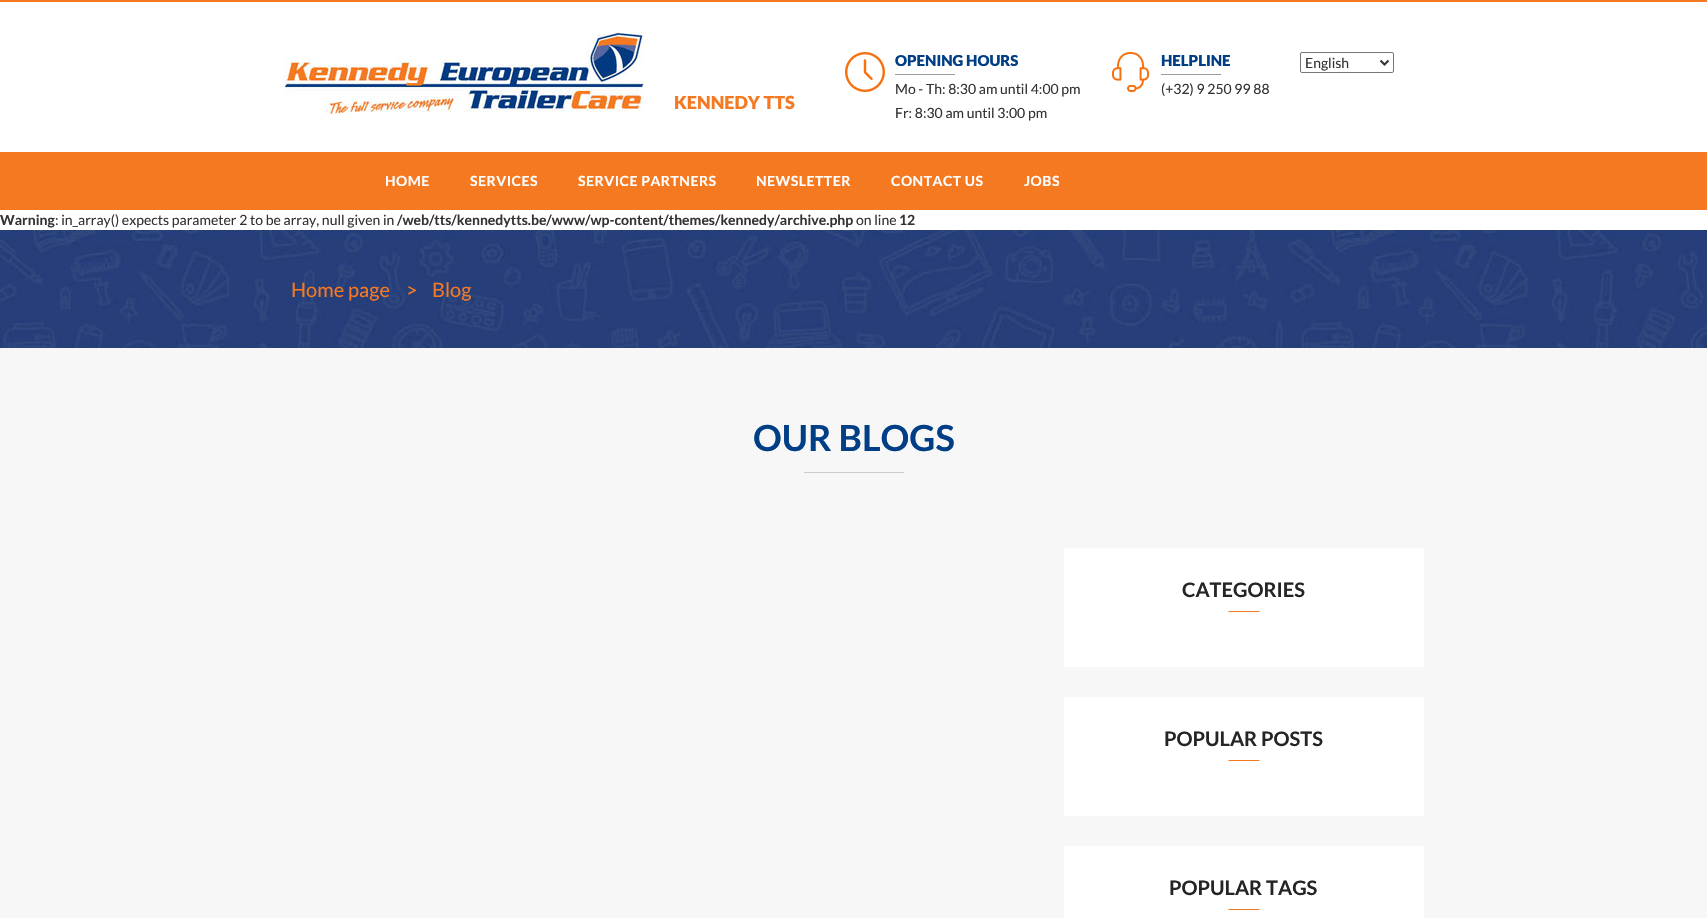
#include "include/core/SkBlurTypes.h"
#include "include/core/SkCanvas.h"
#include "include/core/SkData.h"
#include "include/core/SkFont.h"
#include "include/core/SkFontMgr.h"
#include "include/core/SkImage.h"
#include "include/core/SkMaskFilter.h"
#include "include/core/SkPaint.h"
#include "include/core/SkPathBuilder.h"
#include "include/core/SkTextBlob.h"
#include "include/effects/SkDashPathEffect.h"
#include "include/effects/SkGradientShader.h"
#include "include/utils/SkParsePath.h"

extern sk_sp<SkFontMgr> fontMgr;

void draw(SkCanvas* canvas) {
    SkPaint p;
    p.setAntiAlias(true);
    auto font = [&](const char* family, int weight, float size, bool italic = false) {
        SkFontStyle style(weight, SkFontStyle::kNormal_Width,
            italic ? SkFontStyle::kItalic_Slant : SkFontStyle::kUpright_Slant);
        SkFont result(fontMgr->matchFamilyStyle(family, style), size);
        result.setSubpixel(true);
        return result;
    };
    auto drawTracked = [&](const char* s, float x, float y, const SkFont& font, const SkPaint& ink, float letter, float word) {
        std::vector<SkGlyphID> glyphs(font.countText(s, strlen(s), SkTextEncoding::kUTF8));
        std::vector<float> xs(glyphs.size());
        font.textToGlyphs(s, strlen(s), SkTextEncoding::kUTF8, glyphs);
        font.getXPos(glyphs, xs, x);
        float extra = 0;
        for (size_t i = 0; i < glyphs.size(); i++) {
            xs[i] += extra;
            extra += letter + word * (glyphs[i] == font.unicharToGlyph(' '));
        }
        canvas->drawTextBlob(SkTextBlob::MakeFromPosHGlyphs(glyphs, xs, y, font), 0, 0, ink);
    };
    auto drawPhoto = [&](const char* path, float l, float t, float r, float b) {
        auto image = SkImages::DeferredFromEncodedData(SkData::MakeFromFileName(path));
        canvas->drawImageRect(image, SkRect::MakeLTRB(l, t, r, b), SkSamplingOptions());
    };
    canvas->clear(0xFFFFFFFF);
    p.setColor(0xFFF57921);
    canvas->drawRect(SkRect::MakeLTRB(0, 0, 1707, 2), p);
    drawPhoto("media/1.png", 284, 32, 644, 114);
    auto font1 = font("Lato", 900, 18);
    canvas->drawString("KENNEDY TTS", 674, 109, font1, p);
    drawPhoto("media/2.png", 845, 52, 885, 92);
    auto font2 = font("Lato", 900, 15);
    p.setColor(0xFF003E86);
    canvas->drawString("OPENING HOURS", 895, 66, font2, p);
    p.setColor(0xFF9B9B9B);
    canvas->drawRect(SkRect::MakeLTRB(895, 74, 955, 75), p);
    auto font3 = font("Lato", 400, 14);
    p.setColor(0xFF333333);
    canvas->drawString("Mo - Th: 8:30 am until 4:00 pm", 895, 94, font3, p);
    canvas->drawString("Fr: 8:30 am until 3:00 pm", 895, 118, font3, p);
    drawPhoto("media/3.png", 1112, 52, 1150, 92);
    p.setColor(0xFF003E86);
    canvas->drawString("HELPLINE", 1161, 66, font2, p);
    p.setColor(0xFF9B9B9B);
    canvas->drawRect(SkRect::MakeLTRB(1161, 74, 1221, 75), p);
    p.setColor(0xFF333333);
    canvas->drawString("(+32) 9 250 99 88", 1161, 94, font3, p);
    p.setStyle(SkPaint::kStroke_Style);
    p.setStrokeWidth(1);
    p.setColor(0xFF767676);
    canvas->drawRoundRect(SkRect::MakeLTRB(1300.5f, 52.5f, 1393.5f, 72.5f), 1.5f, 1.5f, p);
    p.setStrokeWidth(2);
    p.setColor(0xFF333333);
    canvas->drawPath(SkPathBuilder().moveTo(1380.5f, 60.5f).lineTo(1384.5f, 64.5f).lineTo(1388.5f, 60.5f).detach(), p);
    p.setStyle(SkPaint::kFill_Style);
    canvas->drawString("English", 1305, 68, font3, p);
    p.setColor(0xFFF57921);
    canvas->drawRect(SkRect::MakeLTRB(0, 152, 1707, 210), p);
    auto font4 = font("Lato", 700, 14);
    p.setColor(0xFFFFFFFF);
    {
        const struct { const char* s; float x, y; } items[] = {
            {"HOME", 385, 186},
            {"SERVICES", 470, 186},
            {"SERVICE PARTNERS", 578, 186},
            {"NEWSLETTER", 756, 186},
            {"CONTACT US", 891, 186},
            {"JOBS", 1024, 186},
        };
        for (auto [s, x, y] : items) {
            drawTracked(s, x, y, font4, p, 0.5f, 0);
        }
    }
    p.setColor(0xFF333333);
    canvas->drawString("Warning", 0, 225, font4, p);
    canvas->drawString(": in_array() expects parameter 2 to be array, null given in", 55, 225, font3, p);
    canvas->drawString("/web/tts/kennedytts.be/www/wp-content/themes/kennedy/archive.php", 397, 225, font4, p);
    canvas->drawString("on line", 856, 225, font3, p);
    canvas->drawString("12", 899, 225, font4, p);
    drawPhoto("media/4.png", 0, 230, 1707, 348);
    auto font5 = font("Lato", 400, 20);
    p.setColor(0xFFF57921);
    {
        const struct { const char* s; float x, y; } items[] = {
            {"Home page", 291, 297},
            {">", 406, 297},
            {"Blog", 432, 297},
        };
        for (auto [s, x, y] : items) {
            canvas->drawString(s, x, y, font5, p);
        }
    }
    p.setColor(0xFFF7F7F7);
    canvas->drawRect(SkRect::MakeLTRB(0, 348, 1707, 918), p);
    auto font6 = font("Lato", 700, 36);
    p.setColor(0xFF003E86);
    canvas->drawString("OUR BLOGS", 753, 451, font6, p);
    p.setColor(0xFFCCCCCC);
    canvas->drawRect(SkRect::MakeLTRB(804, 472, 904, 473), p);
    p.setColor(0xFFFFFFFF);
    canvas->drawRect(SkRect::MakeLTRB(1064, 548, 1424, 667), p);
    drawPhoto("media/5.png", 1228, 611, 1260, 612);
    auto font7 = font("Lato", 700, 20);
    p.setColor(0xFF252525);
    canvas->drawString("CATEGORIES", 1182, 597, font7, p);
    p.setColor(0xFFFFFFFF);
    canvas->drawRect(SkRect::MakeLTRB(1064, 697, 1424, 816), p);
    drawPhoto("media/5.png", 1228, 760, 1260, 761);
    p.setColor(0xFF252525);
    canvas->drawString("POPULAR POSTS", 1164, 746, font7, p);
    p.setColor(0xFFFFFFFF);
    canvas->drawRect(SkRect::MakeLTRB(1064, 846, 1424, 918), p);
    drawPhoto("media/5.png", 1228, 909, 1260, 910);
    p.setColor(0xFF252525);
    canvas->drawString("POPULAR TAGS", 1169, 895, font7, p);
}
